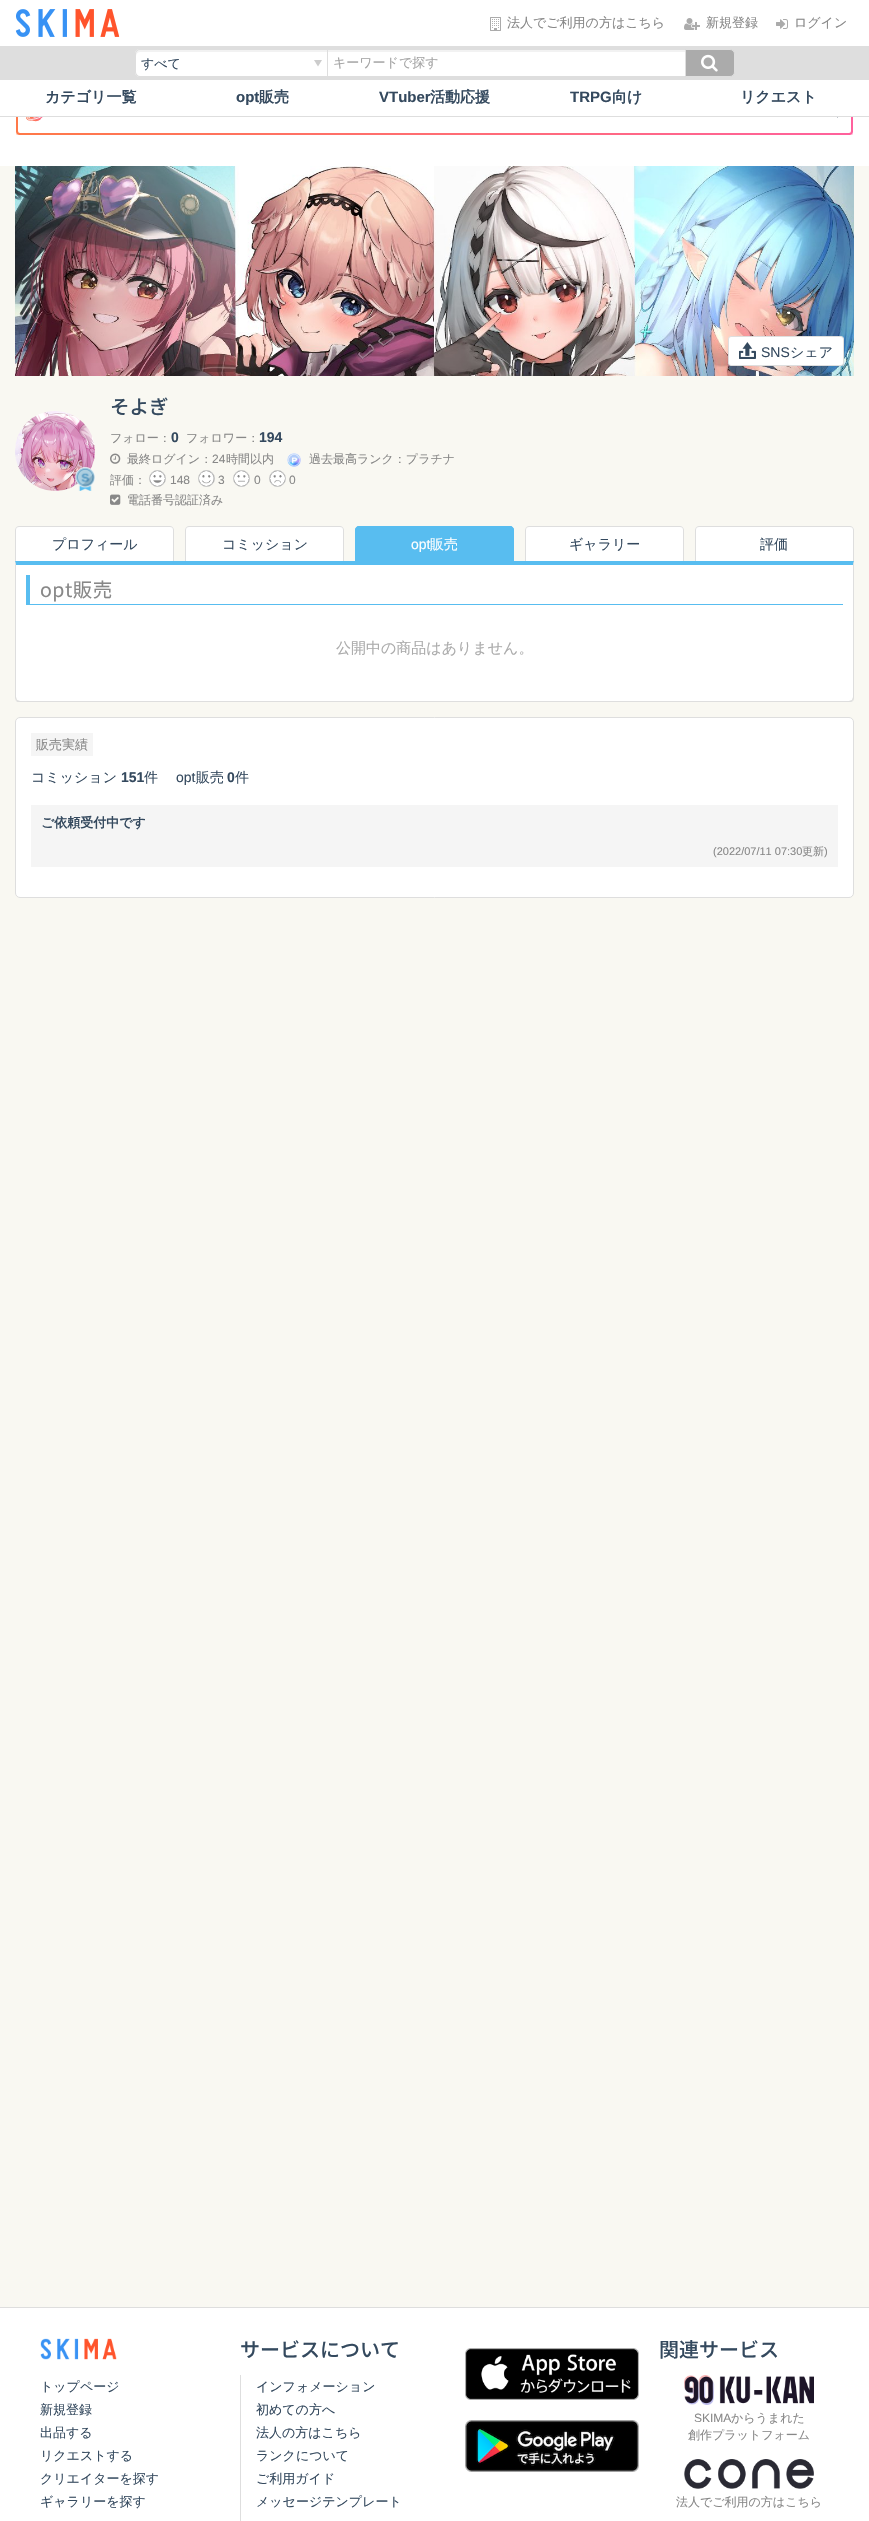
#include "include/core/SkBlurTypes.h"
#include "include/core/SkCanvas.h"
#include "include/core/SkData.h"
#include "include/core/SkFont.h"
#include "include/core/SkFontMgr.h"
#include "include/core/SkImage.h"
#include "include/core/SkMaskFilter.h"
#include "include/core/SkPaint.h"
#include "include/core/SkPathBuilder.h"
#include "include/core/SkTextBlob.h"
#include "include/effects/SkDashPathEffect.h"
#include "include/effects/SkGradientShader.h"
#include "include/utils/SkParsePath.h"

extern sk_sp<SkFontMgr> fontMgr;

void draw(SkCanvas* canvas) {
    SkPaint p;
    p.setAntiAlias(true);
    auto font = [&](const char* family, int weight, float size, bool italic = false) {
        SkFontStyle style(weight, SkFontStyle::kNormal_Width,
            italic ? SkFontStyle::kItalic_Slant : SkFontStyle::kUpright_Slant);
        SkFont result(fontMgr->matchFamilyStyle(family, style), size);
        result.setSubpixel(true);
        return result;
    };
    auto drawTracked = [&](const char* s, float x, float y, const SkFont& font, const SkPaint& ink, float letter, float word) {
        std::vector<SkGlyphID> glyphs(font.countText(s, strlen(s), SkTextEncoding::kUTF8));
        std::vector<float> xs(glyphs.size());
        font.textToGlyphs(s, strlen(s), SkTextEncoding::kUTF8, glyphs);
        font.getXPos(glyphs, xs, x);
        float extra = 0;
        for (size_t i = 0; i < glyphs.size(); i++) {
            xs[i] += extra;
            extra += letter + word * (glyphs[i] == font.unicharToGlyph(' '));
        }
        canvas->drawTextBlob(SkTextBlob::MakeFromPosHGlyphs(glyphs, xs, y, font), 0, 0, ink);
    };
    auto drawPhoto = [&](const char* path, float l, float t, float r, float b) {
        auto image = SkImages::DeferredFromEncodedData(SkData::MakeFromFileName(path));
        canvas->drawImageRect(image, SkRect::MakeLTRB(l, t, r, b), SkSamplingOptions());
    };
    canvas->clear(0xFFFFFFFF);
    drawPhoto("media/1.png", 15, 9, 120, 37);
    drawPhoto("media/2.png", 490, 17, 501, 31);
    auto font1 = font("WenQuanYi Zen Hei", 500, 13);
    p.setColor(0xFF888888);
    canvas->drawString("法人でご利用の方はこちら", 507, 27, font1, p);
    drawPhoto("media/3.png", 684, 18, 700, 30);
    canvas->drawString("新規登録", 706, 27, font1, p);
    drawPhoto("media/4.png", 776, 19, 788, 29);
    canvas->drawString("ログイン", 794, 27, font1, p);
    p.setColor(0xFFDEDEDE);
    canvas->drawRect(SkRect::MakeLTRB(0, 46, 869, 80), p);
    p.setColor(0xFFFFFFFF);
    canvas->drawPath(SkPathBuilder().moveTo(140, 49).lineTo(327, 49).lineTo(327, 77).lineTo(140, 77).cubicTo(137, 77, 135, 75, 135, 72).lineTo(135, 54).cubicTo(135, 51, 137, 49, 140, 49).close().detach(), p);
    p.setColor(0xFFCCCCCC);
    canvas->drawPath(SkPathBuilder().moveTo(318, 66.5f).lineTo(314, 60).lineTo(322, 60).close().detach(), p);
    p.setColor(0xFFF2F2F2);
    canvas->drawPath(SkPathBuilder().moveTo(140, 52).lineTo(327, 52).lineTo(327, 50).lineTo(140, 50).cubicTo(138, 50, 136, 52, 136, 54).lineTo(136, 56).cubicTo(136, 54, 138, 52, 140, 52).close().detach(), p);
    p.setColor(0xFFDEDEDE);
    canvas->drawPath(SkPathBuilder(SkPathFillType::kEvenOdd).moveTo(140, 49).lineTo(327, 49).lineTo(327, 77).lineTo(140, 77).cubicTo(137, 77, 135, 75, 135, 72).lineTo(135, 54).cubicTo(135, 51, 137, 49, 140, 49).close().moveTo(140, 50).lineTo(327, 50).lineTo(327, 76).lineTo(140, 76).cubicTo(138, 76, 136, 74, 136, 72).lineTo(136, 54).cubicTo(136, 52, 138, 50, 140, 50).close().detach(), p);
    p.setColor(0xFF34495E);
    canvas->drawString("すべて", 141, 68, font1, p);
    p.setColor(0xFFFFFFFF);
    canvas->drawRect(SkRect::MakeLTRB(328, 52, 685, 76), p);
    p.setColor(0xFFF2F2F2);
    canvas->drawRect(SkRect::MakeLTRB(328, 50, 685, 52), p);
    p.setColor(0xFFA4A4A4);
    canvas->drawString("キーワードで探す", 333, 67, font1, p);
    p.setColor(0xFFABABAB);
    canvas->drawPath(SkPathBuilder().moveTo(685.5f, 49.5f).lineTo(730, 49.5f).cubicTo(732.5f, 49.5f, 734.5f, 51.5f, 734.5f, 54).lineTo(734.5f, 72).cubicTo(734.5f, 74.5f, 732.5f, 76.5f, 730, 76.5f).lineTo(685.5f, 76.5f).close().detach(), p);
    p.setStyle(SkPaint::kStroke_Style);
    p.setStrokeWidth(1);
    p.setColor(0xFFDEDEDE);
    canvas->drawPath(SkPathBuilder().moveTo(685.5f, 49.5f).lineTo(730, 49.5f).cubicTo(732.5f, 49.5f, 734.5f, 51.5f, 734.5f, 54).lineTo(734.5f, 72).cubicTo(734.5f, 74.5f, 732.5f, 76.5f, 730, 76.5f).lineTo(685.5f, 76.5f).close().detach(), p);
    drawPhoto("media/5.png", 701, 54, 718, 72);
    p.setStyle(SkPaint::kFill_Style);
    {
        const SkColor colors[] = {0xFFFF7948, 0xFFFF60A0};
        const float stops[] = {0, 1};
        const SkPoint ends[] = {{179, 329}, {690, -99}};
        p.setShader(SkGradientShader::MakeLinear(ends, colors, stops, 2, SkTileMode::kClamp));
        p.setAlpha(255);
    }
    canvas->drawRect(SkRect::MakeLTRB(16, 117, 853, 135), p);
    p.setStyle(SkPaint::kStroke_Style);
    p.setShader(nullptr);
    p.setColor(0xFFFFFFFF);
    canvas->drawRoundRect(SkRect::MakeLTRB(15.5f, 94.5f, 853.5f, 135.5f), 3.5f, 3.5f, p);
    p.setStyle(SkPaint::kFill_Style);
    canvas->drawRoundRect(SkRect::MakeLTRB(18, 97, 851, 133), 2, 2, p);
    p.setColor(0xFFDEDEDE);
    canvas->drawRect(SkRect::MakeLTRB(0, 116, 869, 117), p);
    auto font2 = font("WenQuanYi Zen Hei", 700, 15);
    p.setColor(0xFF34495E);
    canvas->drawString("カテゴリ一覧", 45, 102, font2, p);
    auto font3 = font("Liberation Sans", 700, 15);
    canvas->drawString("opt", 236, 102, font3, p);
    canvas->drawString("販売", 259, 102, font2, p);
    canvas->drawString("VTuber", 379, 102, font3, p);
    canvas->drawString("活動応援", 430, 102, font2, p);
    canvas->drawString("TRPG", 570, 102, font3, p);
    canvas->drawString("向け", 612, 102, font2, p);
    canvas->drawString("リクエスト", 740, 102, font2, p);
    drawPhoto("media/6.png", 26, 117, 43, 122);
    drawPhoto("media/7.png", 837, 117, 838, 118);
    p.setColor(0xFFF9F8F2);
    canvas->drawRect(SkRect::MakeLTRB(0, 166, 869, 2307), p);
    drawPhoto("media/8.png", 15, 166, 854, 376);
    p.setColor(0xFFFFFFFF);
    canvas->drawRoundRect(SkRect::MakeLTRB(728.5f, 336.5f, 843.5f, 365.5f), 2.5f, 2.5f, p);
    p.setStyle(SkPaint::kStroke_Style);
    p.setColor(0xFFDEDEDE);
    canvas->drawRoundRect(SkRect::MakeLTRB(728.5f, 336.5f, 843.5f, 365.5f), 2.5f, 2.5f, p);
    drawPhoto("media/9.png", 739, 342, 756, 359);
    auto font4 = font("Liberation Sans", 400, 14);
    p.setStyle(SkPaint::kFill_Style);
    p.setColor(0xFF34495E);
    canvas->drawString("SNS", 761, 357, font4, p);
    auto font5 = font("WenQuanYi Zen Hei", 500, 14);
    canvas->drawString("シェア", 790, 357, font5, p);
    drawPhoto("media/10.png", 15, 411, 95, 491);
    drawPhoto("media/11.png", 74, 467, 95, 491);
    auto font6 = font("Noto Sans JP", 500, 19.5f);
    canvas->drawString("そよぎ", 110, 414, font6, p);
    auto font7 = font("WenQuanYi Zen Hei", 500, 12);
    p.setColor(0xFF888888);
    canvas->drawString("フォロー：", 110, 442, font7, p);
    auto font8 = font("Liberation Sans", 700, 14);
    p.setColor(0xFF34495E);
    canvas->drawString("0", 171, 442, font8, p);
    p.setColor(0xFF888888);
    canvas->drawString("フォロワー：", 186, 442, font7, p);
    p.setColor(0xFF34495E);
    canvas->drawString("194", 259, 442, font8, p);
    drawPhoto("media/12.png", 110, 453, 121, 464);
    p.setColor(0xFF888888);
    canvas->drawString("最終ログイン：", 127, 463, font7, p);
    auto font9 = font("Liberation Sans", 400, 12);
    canvas->drawString("24", 212, 463, font9, p);
    canvas->drawString("時間以内", 226, 463, font7, p);
    drawPhoto("media/13.png", 287, 453, 301, 467);
    canvas->drawString("過去最高ランク：プラチナ", 309, 463, font7, p);
    canvas->drawString("評価：", 110, 484, font7, p);
    canvas->drawCircle(157.5f, 478.5f, 8, p);
    p.setStyle(SkPaint::kStroke_Style);
    p.setColor(0xFFCCCCCC);
    canvas->drawCircle(157.5f, 478.5f, 8, p);
    drawPhoto("media/14.png", 150, 471, 165, 486);
    p.setStyle(SkPaint::kFill_Style);
    p.setColor(0xFF888888);
    canvas->drawString("148", 170, 484, font9, p);
    canvas->drawCircle(206.5f, 478.5f, 8, p);
    p.setStyle(SkPaint::kStroke_Style);
    p.setColor(0xFFCCCCCC);
    canvas->drawCircle(206.5f, 478.5f, 8, p);
    drawPhoto("media/15.png", 199, 471, 214, 486);
    p.setStyle(SkPaint::kFill_Style);
    p.setColor(0xFF888888);
    canvas->drawString("3", 218, 484, font9, p);
    canvas->drawCircle(241.5f, 478.5f, 8, p);
    p.setStyle(SkPaint::kStroke_Style);
    p.setColor(0xFFCCCCCC);
    canvas->drawCircle(241.5f, 478.5f, 8, p);
    drawPhoto("media/16.png", 234, 471, 249, 486);
    p.setStyle(SkPaint::kFill_Style);
    p.setColor(0xFF888888);
    canvas->drawString("0", 254, 484, font9, p);
    canvas->drawCircle(277.5f, 478.5f, 8, p);
    p.setStyle(SkPaint::kStroke_Style);
    p.setColor(0xFFCCCCCC);
    canvas->drawCircle(277.5f, 478.5f, 8, p);
    drawPhoto("media/17.png", 270, 471, 285, 486);
    p.setStyle(SkPaint::kFill_Style);
    p.setColor(0xFF888888);
    canvas->drawString("0", 289, 484, font9, p);
    drawPhoto("media/18.png", 110, 494, 121, 505);
    canvas->drawString("電話番号認証済み", 127, 504, font7, p);
    p.setColor(0xFFFFFFFF);
    canvas->drawPath(SkPathBuilder().moveTo(19, 526).lineTo(170, 526).cubicTo(172, 526, 174, 528, 174, 530).lineTo(174, 561).lineTo(15, 561).lineTo(15, 530).cubicTo(15, 528, 17, 526, 19, 526).close().detach(), p);
    p.setColor(0xFFDEDEDE);
    canvas->drawPath(SkPathBuilder(SkPathFillType::kEvenOdd).moveTo(19, 526).lineTo(170, 526).cubicTo(172, 526, 174, 528, 174, 530).lineTo(174, 561).lineTo(15, 561).lineTo(15, 530).cubicTo(15, 528, 17, 526, 19, 526).close().moveTo(19, 527).lineTo(170, 527).cubicTo(172, 527, 173, 528, 173, 530).lineTo(173, 561).lineTo(16, 561).lineTo(16, 530).cubicTo(16, 528, 17, 527, 19, 527).close().detach(), p);
    p.setColor(0xFF34495E);
    canvas->drawString("プロフィール", 52, 549, font5, p);
    p.setColor(0xFFFFFFFF);
    canvas->drawPath(SkPathBuilder().moveTo(189, 526).lineTo(340, 526).cubicTo(342, 526, 344, 528, 344, 530).lineTo(344, 561).lineTo(185, 561).lineTo(185, 530).cubicTo(185, 528, 187, 526, 189, 526).close().detach(), p);
    p.setColor(0xFFDEDEDE);
    canvas->drawPath(SkPathBuilder(SkPathFillType::kEvenOdd).moveTo(189, 526).lineTo(340, 526).cubicTo(342, 526, 344, 528, 344, 530).lineTo(344, 561).lineTo(185, 561).lineTo(185, 530).cubicTo(185, 528, 187, 526, 189, 526).close().moveTo(189, 527).lineTo(340, 527).cubicTo(342, 527, 343, 528, 343, 530).lineTo(343, 561).lineTo(186, 561).lineTo(186, 530).cubicTo(186, 528, 187, 527, 189, 527).close().detach(), p);
    p.setColor(0xFF34495E);
    canvas->drawString("コミッション", 222, 549, font5, p);
    p.setColor(0xFF58BDF0);
    canvas->drawPath(SkPathBuilder().moveTo(359, 526).lineTo(510, 526).cubicTo(512, 526, 514, 528, 514, 530).lineTo(514, 561).lineTo(355, 561).lineTo(355, 530).cubicTo(355, 528, 357, 526, 359, 526).close().detach(), p);
    canvas->drawPath(SkPathBuilder(SkPathFillType::kEvenOdd).moveTo(359, 526).lineTo(510, 526).cubicTo(512, 526, 514, 528, 514, 530).lineTo(514, 561).lineTo(355, 561).lineTo(355, 530).cubicTo(355, 528, 357, 526, 359, 526).close().moveTo(359, 527).lineTo(510, 527).cubicTo(512, 527, 513, 528, 513, 530).lineTo(513, 561).lineTo(356, 561).lineTo(356, 530).cubicTo(356, 528, 357, 527, 359, 527).close().detach(), p);
    p.setColor(0xFFFFFFFF);
    canvas->drawString("opt", 411, 549, font4, p);
    canvas->drawString("販売", 430, 549, font5, p);
    canvas->drawPath(SkPathBuilder().moveTo(529, 526).lineTo(680, 526).cubicTo(682, 526, 684, 528, 684, 530).lineTo(684, 561).lineTo(525, 561).lineTo(525, 530).cubicTo(525, 528, 527, 526, 529, 526).close().detach(), p);
    p.setColor(0xFFDEDEDE);
    canvas->drawPath(SkPathBuilder(SkPathFillType::kEvenOdd).moveTo(529, 526).lineTo(680, 526).cubicTo(682, 526, 684, 528, 684, 530).lineTo(684, 561).lineTo(525, 561).lineTo(525, 530).cubicTo(525, 528, 527, 526, 529, 526).close().moveTo(529, 527).lineTo(680, 527).cubicTo(682, 527, 683, 528, 683, 530).lineTo(683, 561).lineTo(526, 561).lineTo(526, 530).cubicTo(526, 528, 527, 527, 529, 527).close().detach(), p);
    p.setColor(0xFF34495E);
    canvas->drawString("ギャラリー", 569, 549, font5, p);
    p.setColor(0xFFFFFFFF);
    canvas->drawPath(SkPathBuilder().moveTo(699, 526).lineTo(850, 526).cubicTo(852, 526, 854, 528, 854, 530).lineTo(854, 561).lineTo(695, 561).lineTo(695, 530).cubicTo(695, 528, 697, 526, 699, 526).close().detach(), p);
    p.setColor(0xFFDEDEDE);
    canvas->drawPath(SkPathBuilder(SkPathFillType::kEvenOdd).moveTo(699, 526).lineTo(850, 526).cubicTo(852, 526, 854, 528, 854, 530).lineTo(854, 561).lineTo(695, 561).lineTo(695, 530).cubicTo(695, 528, 697, 526, 699, 526).close().moveTo(699, 527).lineTo(850, 527).cubicTo(852, 527, 853, 528, 853, 530).lineTo(853, 561).lineTo(696, 561).lineTo(696, 530).cubicTo(696, 528, 697, 527, 699, 527).close().detach(), p);
    p.setColor(0xFF34495E);
    canvas->drawString("評価", 760, 549, font5, p);
    p.setColor(0xFFFFFFFF);
    canvas->drawPath(SkPathBuilder().moveTo(16, 565).lineTo(853, 565).lineTo(853, 697).cubicTo(853, 699, 851, 701, 849, 701).lineTo(20, 701).cubicTo(18, 701, 16, 699, 16, 697).close().detach(), p);
    p.setColor(0xFF58BDF0);
    canvas->drawPath(SkPathBuilder().moveTo(15, 561).lineTo(16, 565).lineTo(853, 565).lineTo(854, 561).close().detach(), p);
    p.setColor(0xFFDEDEDE);
    canvas->drawPath(SkPathBuilder().moveTo(854, 561).lineTo(853, 565).lineTo(853, 697).cubicTo(853, 698, 852, 699, 852, 700).lineTo(853, 701).cubicTo(854, 700, 854, 698, 854, 697).close().detach(), p);
    canvas->drawPath(SkPathBuilder().moveTo(20, 702).lineTo(849, 702).cubicTo(850, 702, 852, 702, 853, 701).lineTo(852, 700).cubicTo(851, 700, 850, 701, 849, 701).lineTo(20, 701).cubicTo(19, 701, 18, 700, 17, 700).lineTo(16, 701).cubicTo(17, 702, 18, 702, 20, 702).close().detach(), p);
    canvas->drawPath(SkPathBuilder().moveTo(16, 565).lineTo(15, 561).lineTo(15, 698).lineTo(16, 701).lineTo(17, 700).lineTo(16, 697).close().detach(), p);
    p.setColor(0xFF58BDF0);
    canvas->drawRect(SkRect::MakeLTRB(26, 604, 843, 605), p);
    canvas->drawRect(SkRect::MakeLTRB(26, 575, 30, 605), p);
    auto font10 = font("Noto Sans JP", 400, 19.5f);
    p.setColor(0xFF888888);
    drawTracked("opt販売", 40, 597, font10, p, 0.5f, 0);
    auto font11 = font("WenQuanYi Zen Hei", 500, 15);
    p.setColor(0xFFABABAB);
    canvas->drawString("公開中の商品はありません。", 336, 653, font11, p);
    p.setColor(0xFFFFFFFF);
    canvas->drawRoundRect(SkRect::MakeLTRB(15.5f, 717.5f, 853.5f, 897.5f), 4.5f, 4.5f, p);
    p.setStyle(SkPaint::kStroke_Style);
    p.setColor(0xFFDEDEDE);
    canvas->drawRoundRect(SkRect::MakeLTRB(15.5f, 717.5f, 853.5f, 897.5f), 4.5f, 4.5f, p);
    p.setStyle(SkPaint::kFill_Style);
    p.setColor(0xFFF5F5F5);
    canvas->drawRect(SkRect::MakeLTRB(31, 733, 93, 756), p);
    p.setColor(0xFF888888);
    canvas->drawString("販売実績", 36, 749, font1, p);
    p.setColor(0xFF34495E);
    canvas->drawString("コミッション", 31, 782, font5, p);
    canvas->drawString("151", 121, 782, font8, p);
    canvas->drawString("件", 144, 782, font5, p);
    canvas->drawString("opt", 176, 782, font4, p);
    canvas->drawString("販売", 196, 782, font5, p);
    canvas->drawString("0", 227, 782, font8, p);
    canvas->drawString("件", 235, 782, font5, p);
    p.setColor(0xFFF5F5F5);
    canvas->drawRect(SkRect::MakeLTRB(31, 805, 838, 867), p);
    auto font12 = font("WenQuanYi Zen Hei", 700, 13);
    p.setColor(0xFF34495E);
    canvas->drawString("ご依頼受付中です", 41, 827, font12, p);
    auto font13 = font("Liberation Sans", 400, 11);
    p.setColor(0xFF888888);
    canvas->drawString("(2022/07/11 07:30", 713, 855, font13, p);
    auto font14 = font("WenQuanYi Zen Hei", 500, 11);
    canvas->drawString("更新", 802, 855, font14, p);
    canvas->drawString(")", 824, 855, font13, p);
    p.setColor(0xFFDEDEDE);
    canvas->drawRect(SkRect::MakeLTRB(0, 2307, 869, 2308), p);
    drawPhoto("media/19.png", 40, 2338, 117, 2360);
    p.setColor(0xFF34495E);
    {
        const struct { const char* s; float x, y; } items[] = {
            {"トップページ", 40, 2391},
            {"新規登録", 40, 2414},
            {"出品する", 40, 2437},
            {"リクエストする", 40, 2460},
            {"クリエイターを探す", 40, 2483},
            {"ギャラリーを探す", 40, 2506},
        };
        for (auto [s, x, y] : items) {
            canvas->drawString(s, x, y, font1, p);
        }
    }
    auto font15 = font("Noto Sans JP", 500, 20);
    canvas->drawString("サービスについて", 240, 2357, font15, p);
    p.setColor(0xFFDEDEDE);
    canvas->drawRect(SkRect::MakeLTRB(240, 2375, 241, 2521), p);
    p.setColor(0xFF34495E);
    {
        const struct { const char* s; float x, y; } items[] = {
            {"インフォメーション", 256, 2391},
            {"初めての方へ", 256, 2414},
            {"法人の方はこちら", 256, 2437},
            {"ランクについて", 256, 2460},
            {"ご利用ガイド", 256, 2483},
            {"メッセージテンプレート", 256, 2506},
        };
        for (auto [s, x, y] : items) {
            canvas->drawString(s, x, y, font1, p);
        }
    }
    drawPhoto("media/20.png", 465, 2348, 639, 2400);
    drawPhoto("media/21.png", 465, 2420, 639, 2472);
    canvas->drawString("関連サービス", 659, 2357, font15, p);
    drawPhoto("media/22.png", 684, 2375, 814, 2405);
    p.setColor(0xFF888888);
    canvas->drawString("SKIMA", 694, 2422, font9, p);
    canvas->drawString("からうまれた", 731, 2422, font7, p);
    canvas->drawString("創作プラットフォーム", 688, 2439, font7, p);
    drawPhoto("media/23.png", 684, 2459, 814, 2489);
    canvas->drawString("法人でご利用の方はこちら", 676, 2506, font7, p);
}
